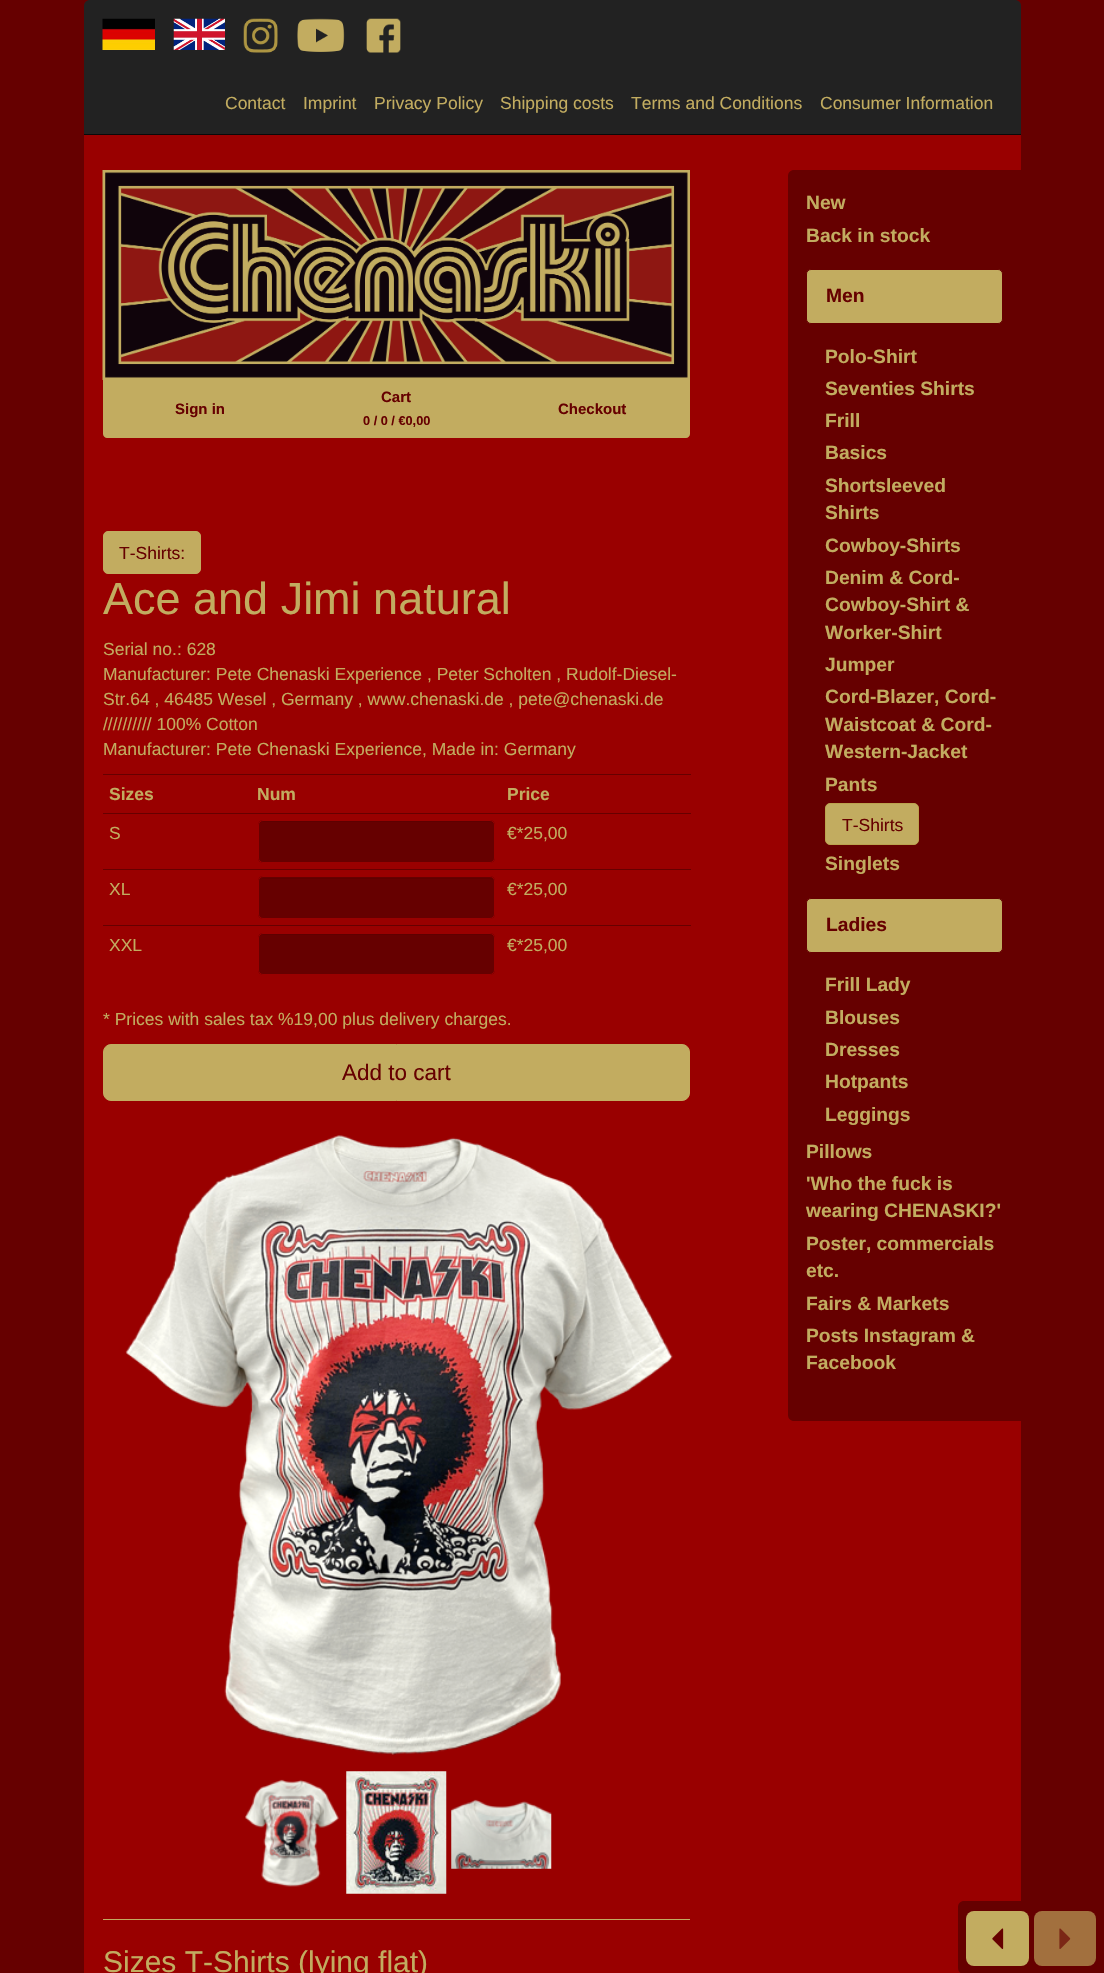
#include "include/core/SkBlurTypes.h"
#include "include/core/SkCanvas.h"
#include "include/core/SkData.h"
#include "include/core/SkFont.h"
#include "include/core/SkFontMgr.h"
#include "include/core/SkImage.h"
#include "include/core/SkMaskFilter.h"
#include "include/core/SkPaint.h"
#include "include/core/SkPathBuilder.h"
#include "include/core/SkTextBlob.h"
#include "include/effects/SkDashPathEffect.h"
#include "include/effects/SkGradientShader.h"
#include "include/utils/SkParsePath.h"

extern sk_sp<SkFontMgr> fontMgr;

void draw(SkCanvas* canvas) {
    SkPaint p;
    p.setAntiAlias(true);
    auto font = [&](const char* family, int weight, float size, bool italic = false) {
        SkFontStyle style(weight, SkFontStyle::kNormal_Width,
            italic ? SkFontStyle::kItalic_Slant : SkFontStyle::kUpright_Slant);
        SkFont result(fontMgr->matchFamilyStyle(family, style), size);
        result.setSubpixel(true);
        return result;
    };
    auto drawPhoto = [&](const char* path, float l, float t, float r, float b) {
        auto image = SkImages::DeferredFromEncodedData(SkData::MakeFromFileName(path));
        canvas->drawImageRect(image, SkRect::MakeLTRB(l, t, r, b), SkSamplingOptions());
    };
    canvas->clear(0xFF660000);
    p.setColor(0xFF222222);
    canvas->drawPath(SkPathBuilder().moveTo(90, 0).lineTo(1015, 0).cubicTo(1018.5f, 0, 1021, 2.5f, 1021, 6).lineTo(1021, 134).lineTo(84, 134).lineTo(84, 6).cubicTo(84, 2.5f, 86.5f, 0, 90, 0).close().detach(), p);
    p.setColor(0xFF090909);
    canvas->drawRect(SkRect::MakeLTRB(84, 134, 1021, 135), p);
    drawPhoto("media/1.png", 102, 18, 155, 50);
    drawPhoto("media/2.png", 173, 18, 225, 50);
    drawPhoto("media/3.png", 243, 18, 278, 53);
    drawPhoto("media/4.png", 297, 18, 345, 52);
    drawPhoto("media/5.png", 366, 18, 401, 53);
    auto font1 = font("Liberation Sans", 400, 17.5f);
    p.setColor(0xFFC2AC60);
    {
        const struct { const char* s; float x, y; } items[] = {
            {"Contact", 225, 109},
            {"Imprint", 303, 109},
            {"Privacy Policy", 374, 109},
            {"Shipping costs", 500, 109},
            {"Terms and Conditions", 631, 109},
            {"Consumer Information", 820, 109},
        };
        for (auto [s, x, y] : items) {
            canvas->drawString(s, x, y, font1, p);
        }
    }
    p.setColor(0xFF990000);
    canvas->drawRect(SkRect::MakeLTRB(84, 135, 1021, 1973), p);
    drawPhoto("media/6.png", 102, 170, 690, 380);
    p.setColor(0xFFC2AC60);
    canvas->drawPath(SkPathBuilder().moveTo(103, 380).lineTo(299, 380).lineTo(299, 438).lineTo(107, 438).cubicTo(105, 438, 103, 436, 103, 434).close().detach(), p);
    auto font2 = font("Liberation Sans", 700, 15);
    p.setColor(0xFF660000);
    canvas->drawString("Sign in", 175, 414, font2, p);
    p.setColor(0xFFC2AC60);
    canvas->drawRect(SkRect::MakeLTRB(299, 380, 494, 438), p);
    p.setColor(0xFF660000);
    canvas->drawString("Cart", 381, 402, font2, p);
    auto font3 = font("Liberation Sans", 700, 12.75f);
    canvas->drawString("0 / 0 / €0,00", 363, 425, font3, p);
    p.setColor(0xFFC2AC60);
    canvas->drawPath(SkPathBuilder().moveTo(494, 380).lineTo(690, 380).lineTo(690, 434).cubicTo(690, 436, 688, 438, 686, 438).lineTo(494, 438).close().detach(), p);
    p.setColor(0xFF660000);
    canvas->drawString("Checkout", 558, 414, font2, p);
    p.setColor(0xFFC2AC60);
    canvas->drawRoundRect(SkRect::MakeLTRB(103.5f, 531.5f, 200.5f, 573.5f), 4.5f, 4.5f, p);
    p.setStyle(SkPaint::kStroke_Style);
    p.setStrokeWidth(1);
    canvas->drawRoundRect(SkRect::MakeLTRB(103.5f, 531.5f, 200.5f, 573.5f), 4.5f, 4.5f, p);
    p.setStyle(SkPaint::kFill_Style);
    p.setColor(0xFF660000);
    canvas->drawString("T-Shirts:", 119, 559, font1, p);
    auto font4 = font("Liberation Sans", 400, 45);
    p.setColor(0xFFC2AC60);
    canvas->drawString("Ace and Jimi natural", 103, 614, font4, p);
    {
        const struct { const char* s; float x, y; } items[] = {
            {"Serial no.: 628", 103, 655},
            {"Manufacturer: Pete Chenaski Experience , Peter Scholten , Rudolf-Diesel-", 103, 680},
            {"Str.64 , 46485 Wesel , Germany , www.chenaski.de , pete@chenaski.de", 103, 705},
            {"////////// 100% Cotton", 103, 730},
            {"Manufacturer: Pete Chenaski Experience, Made in: Germany", 103, 755},
        };
        for (auto [s, x, y] : items) {
            canvas->drawString(s, x, y, font1, p);
        }
    }
    auto font5 = font("Liberation Sans", 700, 17.5f);
    canvas->drawString("Sizes", 109, 800, font5, p);
    canvas->drawString("Num", 257, 800, font5, p);
    p.setColor(0xFF660000);
    canvas->drawRect(SkRect::MakeLTRB(103, 774, 691, 775), p);
    p.setColor(0xFFC2AC60);
    canvas->drawString("Price", 507, 800, font5, p);
    canvas->drawString("S", 109, 839, font1, p);
    p.setColor(0xFF660000);
    canvas->drawRoundRect(SkRect::MakeLTRB(258, 820, 495, 863), 5, 5, p);
    p.setColor(0xFF5E0000);
    canvas->drawPath(SkPathBuilder().moveTo(262, 822).lineTo(490, 822).cubicTo(492, 822, 494, 824, 494, 826).cubicTo(494, 823, 493, 821, 490, 821).lineTo(263, 821).cubicTo(260, 821, 259, 823, 259, 826).cubicTo(259, 824, 260, 822, 262, 822).close().detach(), p);
    p.setStyle(SkPaint::kStroke_Style);
    p.setColor(0xFF990000);
    canvas->drawRoundRect(SkRect::MakeLTRB(258.5f, 820.5f, 494.5f, 862.5f), 4.5f, 4.5f, p);
    p.setStyle(SkPaint::kFill_Style);
    p.setColor(0xFF660000);
    canvas->drawRect(SkRect::MakeLTRB(103, 813, 691, 814), p);
    p.setColor(0xFFC2AC60);
    canvas->drawString("€*25,00", 507, 839, font1, p);
    canvas->drawString("XL", 109, 895, font1, p);
    p.setColor(0xFF660000);
    canvas->drawRoundRect(SkRect::MakeLTRB(258, 876, 495, 919), 5, 5, p);
    p.setColor(0xFF5E0000);
    canvas->drawPath(SkPathBuilder().moveTo(262, 879).lineTo(490, 879).cubicTo(492, 879, 494, 880, 494, 882).cubicTo(494, 880, 492, 878, 490, 878).lineTo(263, 878).cubicTo(262, 878, 260, 879, 260, 880).close().detach(), p);
    p.setStyle(SkPaint::kStroke_Style);
    p.setColor(0xFF990000);
    canvas->drawRoundRect(SkRect::MakeLTRB(258.5f, 876.5f, 494.5f, 918.5f), 4.5f, 4.5f, p);
    p.setStyle(SkPaint::kFill_Style);
    p.setColor(0xFF660000);
    canvas->drawRect(SkRect::MakeLTRB(103, 869, 691, 870), p);
    p.setColor(0xFFC2AC60);
    canvas->drawString("€*25,00", 507, 895, font1, p);
    canvas->drawString("XXL", 109, 951, font1, p);
    p.setColor(0xFF660000);
    canvas->drawRoundRect(SkRect::MakeLTRB(258, 933, 495, 975), 5, 5, p);
    p.setColor(0xFF5E0000);
    canvas->drawPath(SkPathBuilder().moveTo(262, 935).lineTo(490, 935).cubicTo(492, 935, 494, 937, 494, 939).cubicTo(494, 936, 493, 934, 490, 934).lineTo(263, 934).cubicTo(260, 934, 259, 936, 259, 939).cubicTo(259, 937, 260, 935, 262, 935).close().detach(), p);
    p.setStyle(SkPaint::kStroke_Style);
    p.setColor(0xFF990000);
    canvas->drawRoundRect(SkRect::MakeLTRB(258.5f, 933.5f, 494.5f, 974.5f), 4.5f, 4.5f, p);
    p.setStyle(SkPaint::kFill_Style);
    p.setColor(0xFF660000);
    canvas->drawRect(SkRect::MakeLTRB(103, 925, 691, 926), p);
    p.setColor(0xFFC2AC60);
    canvas->drawString("€*25,00", 507, 951, font1, p);
    canvas->drawString("* Prices with sales tax %19,00 plus delivery charges.", 103, 1025, font1, p);
    canvas->drawRoundRect(SkRect::MakeLTRB(103.5f, 1044.5f, 689.5f, 1100.5f), 7.5f, 7.5f, p);
    p.setStyle(SkPaint::kStroke_Style);
    canvas->drawRoundRect(SkRect::MakeLTRB(103.5f, 1044.5f, 689.5f, 1100.5f), 7.5f, 7.5f, p);
    auto font6 = font("Liberation Sans", 400, 22.5f);
    p.setStyle(SkPaint::kFill_Style);
    p.setColor(0xFF660000);
    canvas->drawString("Add to cart", 342, 1080, font6, p);
    drawPhoto("media/7.png", 125, 1135, 673, 1755);
    drawPhoto("media/8.png", 245, 1779, 339, 1887);
    drawPhoto("media/9.png", 346, 1771, 447, 1894);
    drawPhoto("media/10.png", 451, 1799, 552, 1869);
    p.setColor(0xFFC2AC60);
    canvas->drawRect(SkRect::MakeLTRB(103, 1919, 690, 1920), p);
    auto font7 = font("Liberation Sans", 400, 30);
    canvas->drawString("Sizes T-Shirts (lying flat)", 103, 1972, font7, p);
    p.setColor(0xFF660000);
    canvas->drawPath(SkPathBuilder().moveTo(794, 170).lineTo(1021, 170).lineTo(1021, 1421).lineTo(794, 1421).cubicTo(790.5f, 1421, 788, 1418.5f, 788, 1415).lineTo(788, 176).cubicTo(788, 172.5f, 790.5f, 170, 794, 170).close().detach(), p);
    auto font8 = font("Liberation Sans", 700, 19.25f);
    p.setColor(0xFFC2AC60);
    canvas->drawString("New", 806, 209, font8, p);
    canvas->drawString("Back in stock", 806, 242, font8, p);
    canvas->drawRoundRect(SkRect::MakeLTRB(806.5f, 269.5f, 1002.5f, 323.5f), 4.5f, 4.5f, p);
    p.setStyle(SkPaint::kStroke_Style);
    p.setColor(0xFF660000);
    canvas->drawRoundRect(SkRect::MakeLTRB(806.5f, 269.5f, 1002.5f, 323.5f), 4.5f, 4.5f, p);
    p.setStyle(SkPaint::kFill_Style);
    canvas->drawString("Men", 826, 302, font8, p);
    p.setColor(0xFFC2AC60);
    {
        const struct { const char* s; float x, y; } items[] = {
            {"Polo-Shirt", 825, 363},
            {"Seventies Shirts", 825, 395},
            {"Frill", 825, 427},
            {"Basics", 825, 459},
            {"Shortsleeved", 825, 492},
            {"Shirts", 825, 519},
            {"Cowboy-Shirts", 825, 552},
            {"Denim & Cord-", 825, 584},
            {"Cowboy-Shirt &", 825, 611},
            {"Worker-Shirt", 825, 639},
            {"Jumper", 825, 671},
            {"Cord-Blazer, Cord-", 825, 703},
            {"Waistcoat & Cord-", 825, 731},
            {"Western-Jacket", 825, 758},
            {"Pants", 825, 791},
        };
        for (auto [s, x, y] : items) {
            canvas->drawString(s, x, y, font8, p);
        }
    }
    canvas->drawRoundRect(SkRect::MakeLTRB(825.5f, 803.5f, 918.5f, 844.5f), 4.5f, 4.5f, p);
    p.setStyle(SkPaint::kStroke_Style);
    p.setColor(0xFFBBA24E);
    canvas->drawRoundRect(SkRect::MakeLTRB(825.5f, 803.5f, 918.5f, 844.5f), 4.5f, 4.5f, p);
    p.setStyle(SkPaint::kFill_Style);
    p.setColor(0xFF660000);
    canvas->drawString("T-Shirts", 842, 831, font1, p);
    p.setColor(0xFFC2AC60);
    canvas->drawString("Singlets", 825, 870, font8, p);
    canvas->drawRoundRect(SkRect::MakeLTRB(806.5f, 898.5f, 1002.5f, 952.5f), 4.5f, 4.5f, p);
    p.setStyle(SkPaint::kStroke_Style);
    p.setColor(0xFF660000);
    canvas->drawRoundRect(SkRect::MakeLTRB(806.5f, 898.5f, 1002.5f, 952.5f), 4.5f, 4.5f, p);
    p.setStyle(SkPaint::kFill_Style);
    canvas->drawString("Ladies", 826, 931, font8, p);
    p.setColor(0xFFC2AC60);
    {
        const struct { const char* s; float x, y; } items[] = {
            {"Frill Lady", 825, 991},
            {"Blouses", 825, 1024},
            {"Dresses", 825, 1056},
            {"Hotpants", 825, 1088},
            {"Leggings", 825, 1121},
            {"Pillows", 806, 1158},
            {"'Who the fuck is", 806, 1190},
            {"wearing CHENASKI?'", 806, 1217},
            {"Poster, commercials", 806, 1250},
            {"etc.", 806, 1277},
            {"Fairs & Markets", 806, 1310},
            {"Posts Instagram &", 806, 1342},
            {"Facebook", 806, 1369},
        };
        for (auto [s, x, y] : items) {
            canvas->drawString(s, x, y, font8, p);
        }
    }
    p.setColor(0xFF660000);
    canvas->drawPath(SkPathBuilder().moveTo(964, 1901).lineTo(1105, 1901).lineTo(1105, 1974).lineTo(964, 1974).cubicTo(960.5f, 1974, 958, 1971.5f, 958, 1968).lineTo(958, 1907).cubicTo(958, 1903.5f, 960.5f, 1901, 964, 1901).close().detach(), p);
    p.setColor(0xFFC2AC60);
    canvas->drawRoundRect(SkRect::MakeLTRB(966, 1911, 1029, 1966), 8, 8, p);
    drawPhoto("media/11.png", 992, 1928, 1004, 1950);
    p.setColor(0xFFA2703E);
    canvas->drawRoundRect(SkRect::MakeLTRB(1034, 1911, 1096, 1966), 8, 8, p);
    drawPhoto("media/12.png", 1059, 1928, 1071, 1949);
}
